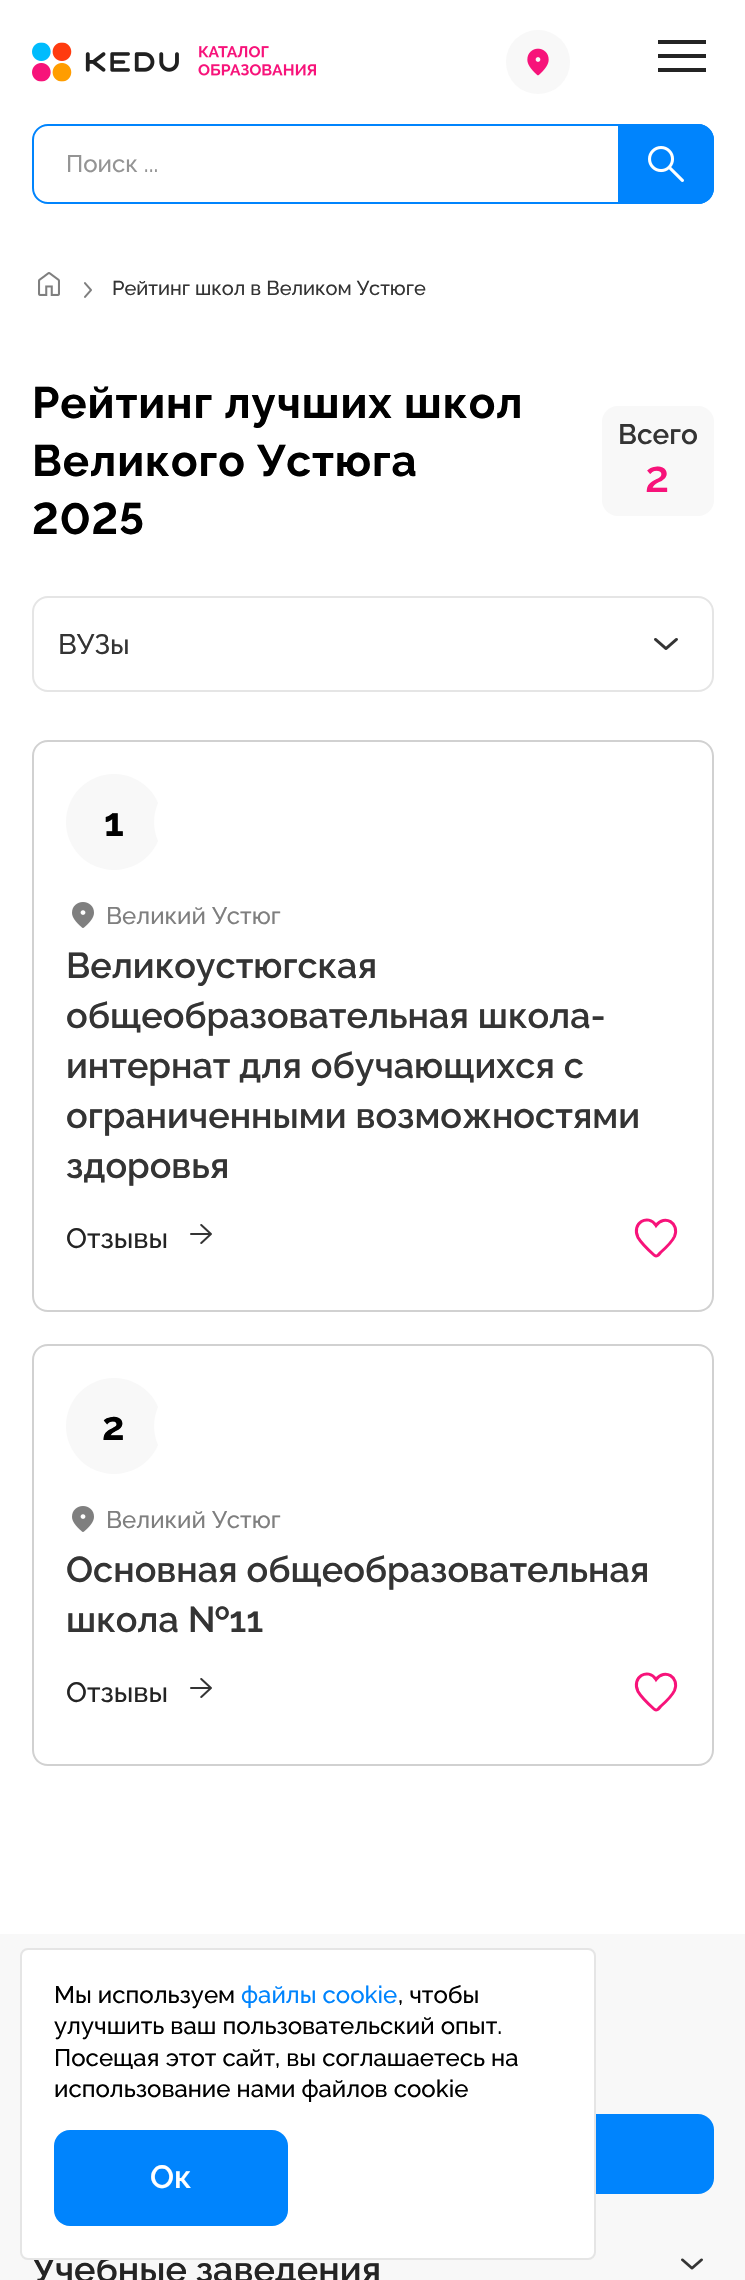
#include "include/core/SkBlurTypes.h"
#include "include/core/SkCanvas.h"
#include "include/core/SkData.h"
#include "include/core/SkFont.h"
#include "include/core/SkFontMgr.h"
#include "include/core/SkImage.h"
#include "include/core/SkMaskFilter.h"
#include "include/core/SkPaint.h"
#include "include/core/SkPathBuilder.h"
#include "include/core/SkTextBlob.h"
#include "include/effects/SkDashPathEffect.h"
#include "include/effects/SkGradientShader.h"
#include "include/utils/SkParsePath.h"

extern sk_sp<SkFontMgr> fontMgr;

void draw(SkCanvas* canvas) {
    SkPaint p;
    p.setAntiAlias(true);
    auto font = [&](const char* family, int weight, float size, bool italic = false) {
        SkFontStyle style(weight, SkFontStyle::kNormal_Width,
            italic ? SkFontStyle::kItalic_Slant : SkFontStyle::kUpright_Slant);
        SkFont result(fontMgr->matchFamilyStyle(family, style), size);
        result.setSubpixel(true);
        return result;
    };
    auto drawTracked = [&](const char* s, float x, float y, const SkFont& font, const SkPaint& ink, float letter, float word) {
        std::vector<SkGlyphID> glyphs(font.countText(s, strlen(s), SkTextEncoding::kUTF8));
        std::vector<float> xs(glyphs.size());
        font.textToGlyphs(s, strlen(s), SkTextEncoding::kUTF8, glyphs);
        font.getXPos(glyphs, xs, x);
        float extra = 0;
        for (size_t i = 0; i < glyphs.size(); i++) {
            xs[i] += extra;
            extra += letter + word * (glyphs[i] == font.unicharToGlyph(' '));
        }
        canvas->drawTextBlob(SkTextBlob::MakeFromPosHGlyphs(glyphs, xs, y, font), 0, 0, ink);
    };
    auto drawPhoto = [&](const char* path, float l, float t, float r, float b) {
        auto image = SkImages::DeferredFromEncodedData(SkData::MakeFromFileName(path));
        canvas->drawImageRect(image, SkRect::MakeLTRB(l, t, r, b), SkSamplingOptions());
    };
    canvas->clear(0xFFFFFFFF);
    drawPhoto("media/1.png", 32, 42, 316, 82);
    p.setColor(0xFFF8F8F8);
    canvas->drawCircle(538, 62, 32, p);
    drawPhoto("media/2.png", 527, 48, 549, 76);
    {
        const struct { float l, t, r, b; SkColor color; } items[] = {
            {658, 54, 706, 58, 0xFF242424},
            {658, 40, 706, 44, 0xFF242424},
            {658, 68, 706, 72, 0xFF242424},
        };
        for (auto [l, t, r, b, color] : items) {
            p.setColor(color);
            canvas->drawRect(SkRect::MakeLTRB(l, t, r, b), p);
        }
    }
    p.setStyle(SkPaint::kStroke_Style);
    p.setStrokeWidth(2);
    p.setColor(0xFF0084FD);
    canvas->drawRoundRect(SkRect::MakeLTRB(33, 125, 713, 203), 15, 15, p);
    auto font1 = font("Raleway", 500, 24);
    p.setStyle(SkPaint::kFill_Style);
    p.setColor(0xFF949494);
    canvas->drawString("Поиск ...", 66, 172, font1, p);
    p.setColor(0xFF0084FD);
    canvas->drawPath(SkPathBuilder().moveTo(618, 124).lineTo(698, 124).cubicTo(707, 124, 714, 131, 714, 140).lineTo(714, 188).cubicTo(714, 197, 707, 204, 698, 204).lineTo(618, 204).close().detach(), p);
    drawPhoto("media/3.png", 648, 146, 684, 182);
    drawPhoto("media/4.png", 38, 272, 60, 296);
    drawPhoto("media/5.png", 84, 282, 92, 298);
    auto font2 = font("Raleway", 500, 20);
    p.setColor(0xFF343434);
    canvas->drawString("Рейтинг школ в Великом Устюге", 112, 295, font2, p);
    auto font3 = font("Raleway", 700, 44);
    p.setColor(0xFF000000);
    drawTracked("Рейтинг лучших школ", 32, 418, font3, p, 0.9f, 0);
    drawTracked("Великого Устюга", 32, 476, font3, p, 0.9f, 0);
    auto font4 = font("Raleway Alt", 700, 44);
    drawTracked("2025", 32, 534, font4, p, 0.9f, 0);
    p.setColor(0xFFF8F8F8);
    canvas->drawRoundRect(SkRect::MakeLTRB(602, 406, 714, 516), 16, 16, p);
    auto font5 = font("Raleway", 600, 28);
    p.setColor(0xFF343434);
    canvas->drawString("Всего", 618, 444, font5, p);
    auto font6 = font("Raleway", 600, 44);
    p.setColor(0xFFF7137A);
    canvas->drawString("2", 645, 492, font6, p);
    p.setStyle(SkPaint::kStroke_Style);
    p.setColor(0xFFE5E5E5);
    canvas->drawRoundRect(SkRect::MakeLTRB(33, 597, 713, 691), 15, 15, p);
    auto font7 = font("Raleway", 500, 28);
    p.setStyle(SkPaint::kFill_Style);
    p.setColor(0xFF343434);
    canvas->drawString("ВУЗы", 58, 654, font7, p);
    drawPhoto("media/6.png", 654, 638, 678, 650);
    p.setColor(0xFFD1D1D1);
    canvas->drawPath(SkPathBuilder(SkPathFillType::kEvenOdd).moveTo(48, 740).lineTo(698, 740).cubicTo(707, 740, 714, 747, 714, 756).lineTo(714, 868).lineTo(32, 868).lineTo(32, 756).cubicTo(32, 747, 39, 740, 48, 740).close().moveTo(48, 742).lineTo(698, 742).cubicTo(706, 742, 712, 748, 712, 756).lineTo(712, 868).lineTo(34, 868).lineTo(34, 756).cubicTo(34, 748, 40, 742, 48, 742).close().detach(), p);
    canvas->drawPath(SkPathBuilder(SkPathFillType::kEvenOdd).moveTo(32, 868).lineTo(714, 868).lineTo(714, 1296).cubicTo(714, 1305, 707, 1312, 698, 1312).lineTo(48, 1312).cubicTo(39, 1312, 32, 1305, 32, 1296).close().moveTo(34, 868).lineTo(712, 868).lineTo(712, 1296).cubicTo(712, 1304, 706, 1310, 698, 1310).lineTo(48, 1310).cubicTo(40, 1310, 34, 1304, 34, 1296).close().detach(), p);
    p.setColor(0xFFF8F8F8);
    canvas->drawCircle(114, 822, 48, p);
    auto font8 = font("Raleway", 700, 40);
    p.setColor(0xFF000000);
    canvas->drawString("1", 104, 836, font8, p);
    p.setColor(0xFFFFFFFF);
    canvas->drawCircle(202, 822, 48, p);
    drawPhoto("media/7.png", 72, 902, 94, 928);
    p.setColor(0xFF7F7F7F);
    canvas->drawString("Великий Устюг", 106, 924, font1, p);
    auto font9 = font("Raleway", 600, 36);
    p.setColor(0xFF343434);
    {
        const struct { const char* s; float x, y; } items[] = {
            {"Великоустюгская", 66, 978},
            {"общеобразовательная школа-", 66, 1028},
            {"интернат для обучающихся с", 66, 1078},
            {"ограниченными возможностями", 66, 1128},
            {"здоровья", 66, 1178},
        };
        for (auto [s, x, y] : items) {
            canvas->drawString(s, x, y, font9, p);
        }
    }
    p.setColor(0xFF242424);
    canvas->drawString("Отзывы", 66, 1248, font7, p);
    drawPhoto("media/8.png", 190, 1224, 212, 1244);
    p.setStyle(SkPaint::kStroke_Style);
    p.setStrokeWidth(3);
    p.setColor(0xFFF7137A);
    canvas->drawPath(SkPathBuilder().moveTo(654, 1255).cubicTo(649, 1250.5f, 641.5f, 1243.5f, 638, 1237.5f).cubicTo(631, 1223.5f, 648, 1213, 656, 1225.5f).cubicTo(664.5f, 1214, 680, 1223, 674.5f, 1236.5f).cubicTo(672, 1242, 665, 1248.5f, 660.5f, 1252.5f).cubicTo(659, 1254.5f, 656.5f, 1257.5f, 654, 1255).close().detach(), p);
    p.setStyle(SkPaint::kFill_Style);
    p.setColor(0xFFD1D1D1);
    canvas->drawPath(SkPathBuilder(SkPathFillType::kEvenOdd).moveTo(48, 1344).lineTo(698, 1344).cubicTo(707, 1344, 714, 1351, 714, 1360).lineTo(714, 1472).lineTo(32, 1472).lineTo(32, 1360).cubicTo(32, 1351, 39, 1344, 48, 1344).close().moveTo(48, 1346).lineTo(698, 1346).cubicTo(706, 1346, 712, 1352, 712, 1360).lineTo(712, 1472).lineTo(34, 1472).lineTo(34, 1360).cubicTo(34, 1352, 40, 1346, 48, 1346).close().detach(), p);
    canvas->drawPath(SkPathBuilder(SkPathFillType::kEvenOdd).moveTo(32, 1472).lineTo(714, 1472).lineTo(714, 1750).cubicTo(714, 1759, 707, 1766, 698, 1766).lineTo(48, 1766).cubicTo(39, 1766, 32, 1759, 32, 1750).close().moveTo(34, 1472).lineTo(712, 1472).lineTo(712, 1750).cubicTo(712, 1758, 706, 1764, 698, 1764).lineTo(48, 1764).cubicTo(40, 1764, 34, 1758, 34, 1750).close().detach(), p);
    p.setColor(0xFFF8F8F8);
    canvas->drawCircle(114, 1426, 48, p);
    p.setColor(0xFF000000);
    canvas->drawString("2", 102, 1440, font8, p);
    p.setColor(0xFFFFFFFF);
    canvas->drawCircle(202, 1426, 48, p);
    drawPhoto("media/7.png", 72, 1506, 94, 1532);
    p.setColor(0xFF7F7F7F);
    canvas->drawString("Великий Устюг", 106, 1528, font1, p);
    p.setColor(0xFF343434);
    canvas->drawString("Основная общеобразовательная", 66, 1582, font9, p);
    canvas->drawString("школа №11", 66, 1632, font9, p);
    p.setColor(0xFF242424);
    canvas->drawString("Отзывы", 66, 1702, font7, p);
    drawPhoto("media/8.png", 190, 1678, 212, 1698);
    p.setStyle(SkPaint::kStroke_Style);
    p.setColor(0xFFF7137A);
    canvas->drawPath(SkPathBuilder().moveTo(654, 1709).cubicTo(649, 1704.5f, 641.5f, 1697.5f, 638, 1691.5f).cubicTo(631, 1677.5f, 648, 1667, 656, 1679.5f).cubicTo(664.5f, 1668, 680, 1677, 674.5f, 1690.5f).cubicTo(672, 1696, 665, 1702.5f, 660.5f, 1706.5f).cubicTo(659, 1708.5f, 656.5f, 1711.5f, 654, 1709).close().detach(), p);
    p.setStyle(SkPaint::kFill_Style);
    p.setColor(0xFFF8F8F8);
    canvas->drawRect(SkRect::MakeLTRB(0, 1934, 745, 2280), p);
    p.setColor(0xFF0084FD);
    canvas->drawRoundRect(SkRect::MakeLTRB(32, 2114, 714, 2194), 16, 16, p);
    p.setColor(0xFF242424);
    canvas->drawString("Учебные заведения", 32, 2282, font9, p);
    drawPhoto("media/9.png", 681, 2258, 703, 2270);
    p.setColor(0xFFFFFFFF);
    canvas->drawRoundRect(SkRect::MakeLTRB(21, 1949, 595, 2259), 7, 7, p);
    p.setStyle(SkPaint::kStroke_Style);
    p.setStrokeWidth(2);
    p.setColor(0xFFE5E5E5);
    canvas->drawRoundRect(SkRect::MakeLTRB(21, 1949, 595, 2259), 7, 7, p);
    p.setStyle(SkPaint::kFill_Style);
    p.setColor(0xFF000000);
    canvas->drawString("Мы используем", 54, 2003, font1, p);
    p.setColor(0xFF0084FD);
    canvas->drawString("файлы cookie", 241, 2003, font1, p);
    p.setColor(0xFF000000);
    {
        const struct { const char* s; float x, y; } items[] = {
            {", чтобы", 398, 2003},
            {"улучшить ваш пользовательский опыт.", 54, 2034},
            {"Посещая этот сайт, вы соглашаетесь на", 54, 2066},
            {"использование нами файлов cookie", 54, 2097},
        };
        for (auto [s, x, y] : items) {
            canvas->drawString(s, x, y, font1, p);
        }
    }
    p.setColor(0xFF0084FD);
    canvas->drawRoundRect(SkRect::MakeLTRB(54, 2130, 288, 2226), 16, 16, p);
    auto font10 = font("Raleway", 600, 32);
    p.setColor(0xFFFFFFFF);
    canvas->drawString("Ок", 150, 2188, font10, p);
}
